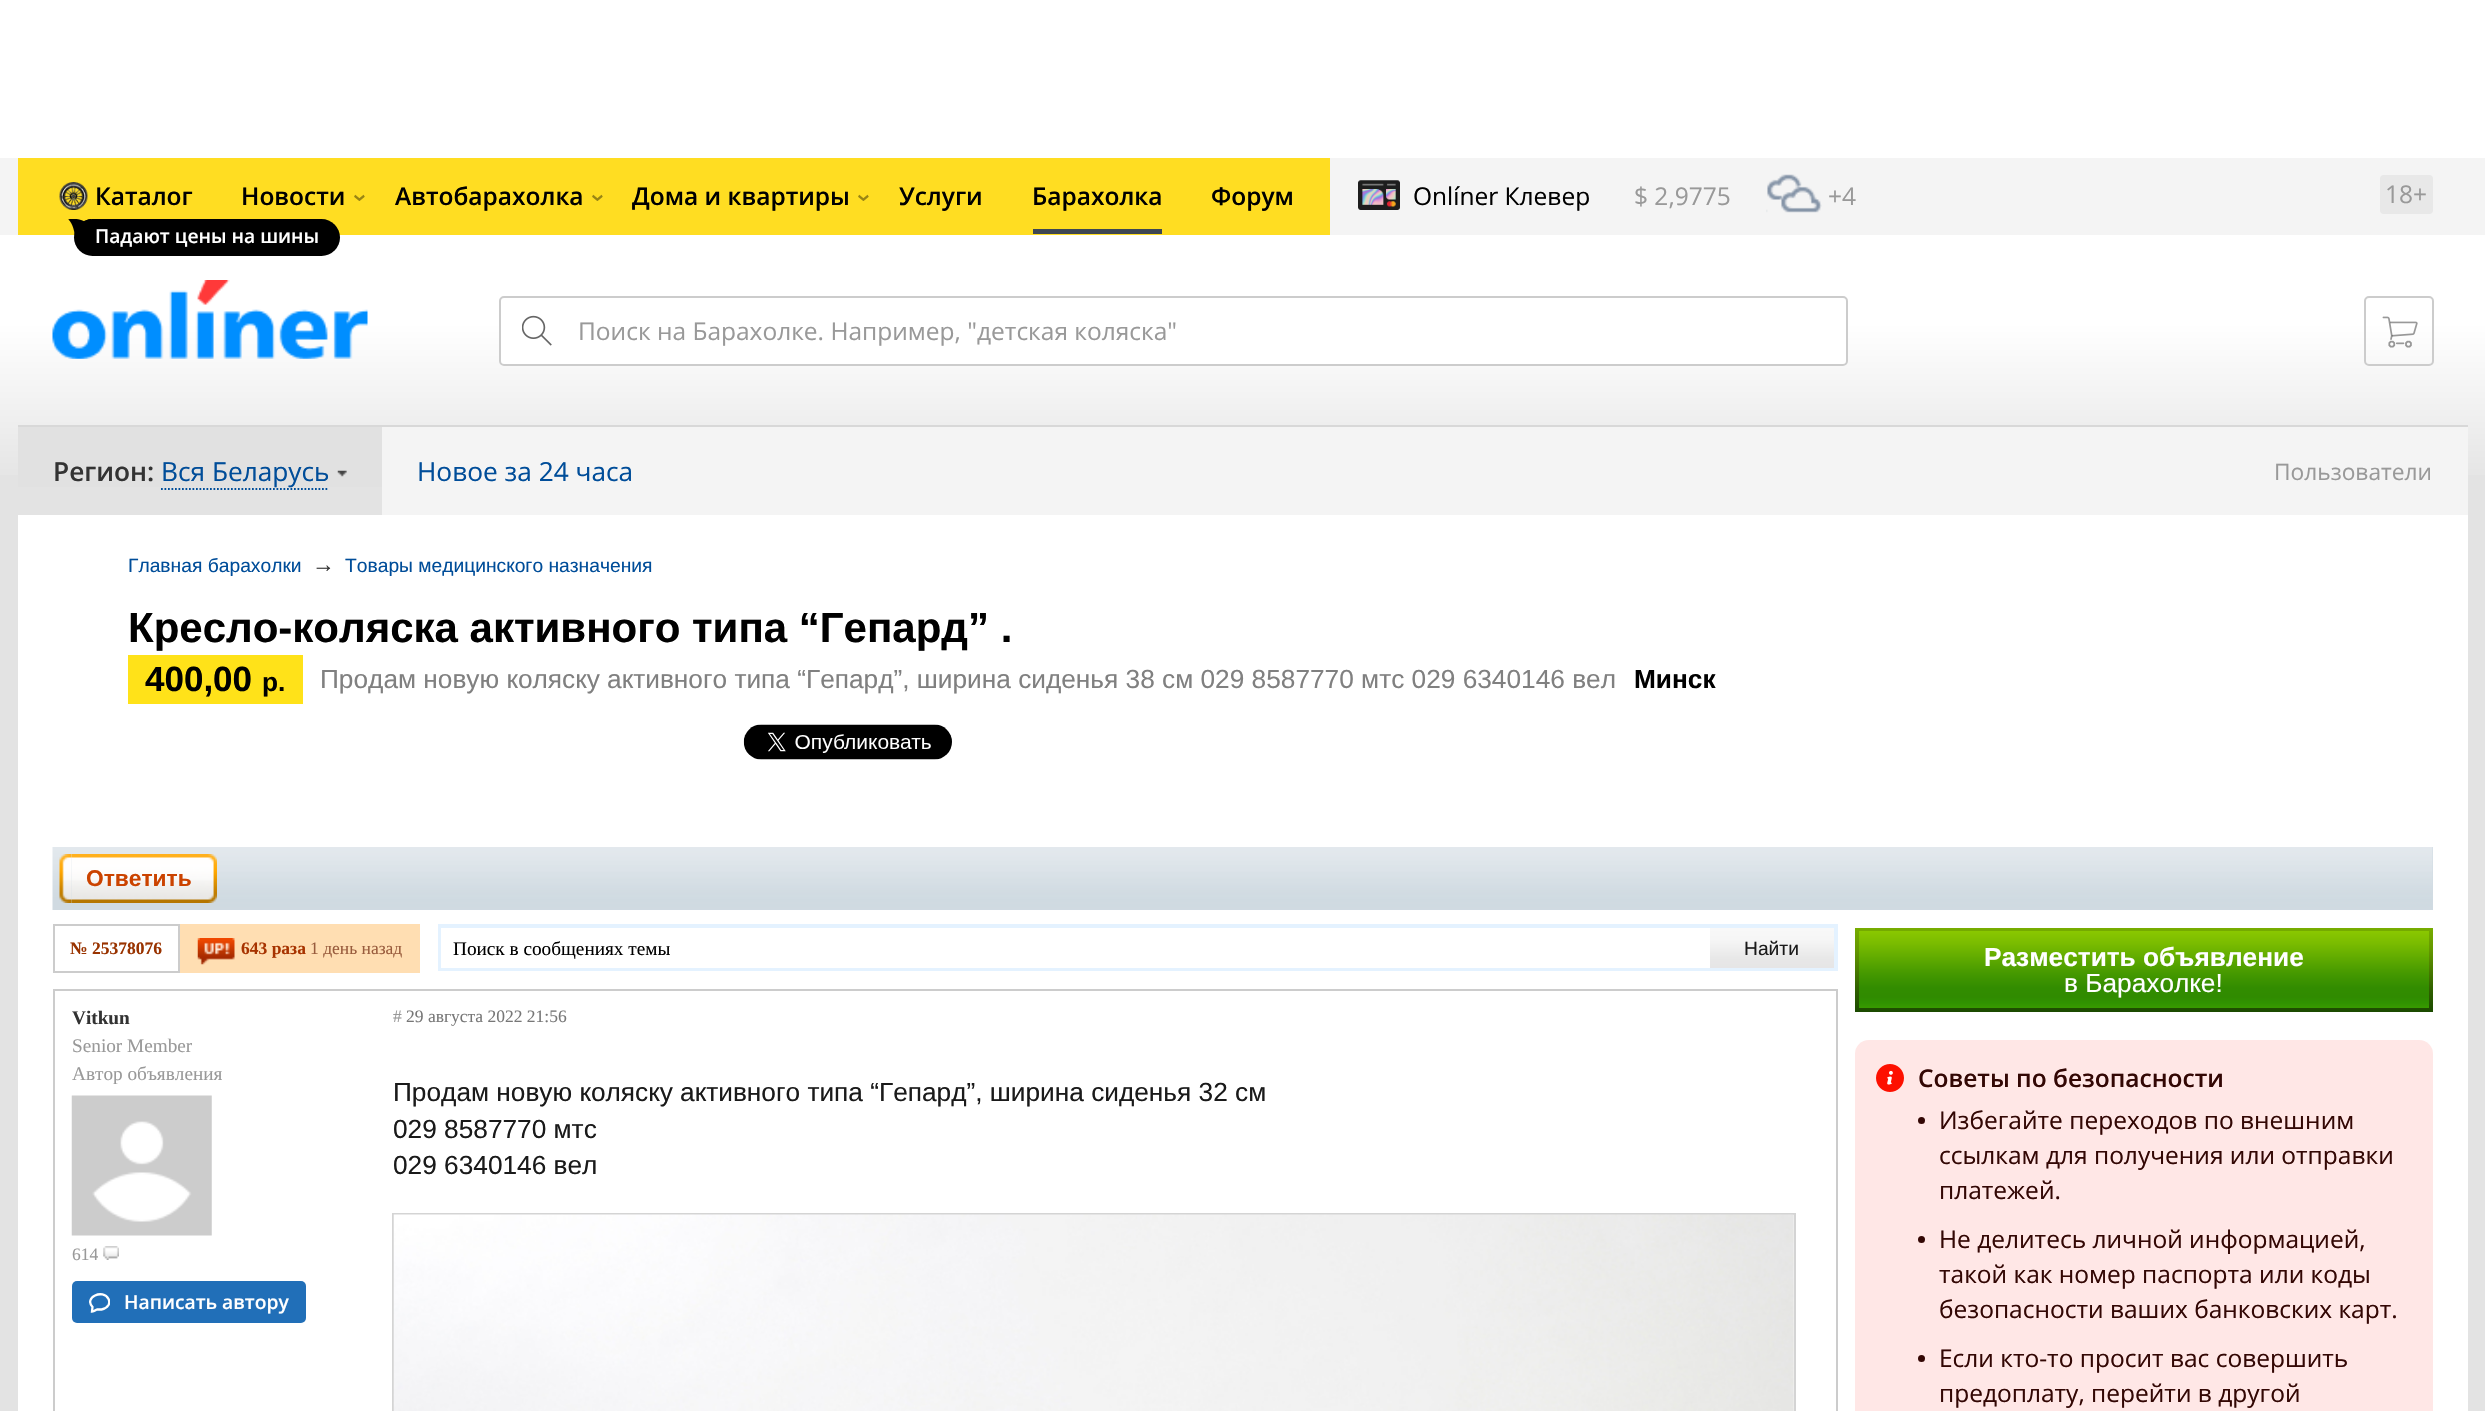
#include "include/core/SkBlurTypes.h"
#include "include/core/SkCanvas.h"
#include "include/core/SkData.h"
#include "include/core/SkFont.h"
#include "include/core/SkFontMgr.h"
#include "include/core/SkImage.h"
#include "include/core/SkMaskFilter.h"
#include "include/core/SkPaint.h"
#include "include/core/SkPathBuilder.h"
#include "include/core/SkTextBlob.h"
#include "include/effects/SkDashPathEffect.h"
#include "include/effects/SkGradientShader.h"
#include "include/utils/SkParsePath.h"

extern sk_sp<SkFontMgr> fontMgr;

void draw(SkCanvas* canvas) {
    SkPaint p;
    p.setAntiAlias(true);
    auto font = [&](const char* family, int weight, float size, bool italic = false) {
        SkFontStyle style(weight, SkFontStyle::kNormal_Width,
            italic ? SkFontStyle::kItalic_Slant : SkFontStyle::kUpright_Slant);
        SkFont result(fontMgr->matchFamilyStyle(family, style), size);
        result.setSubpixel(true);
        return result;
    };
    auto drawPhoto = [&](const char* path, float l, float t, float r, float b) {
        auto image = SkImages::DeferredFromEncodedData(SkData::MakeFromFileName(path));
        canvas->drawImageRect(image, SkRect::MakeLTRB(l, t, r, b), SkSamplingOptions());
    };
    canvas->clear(0xFFE3E3E3);
    p.setColor(0xFFFFFFFF);
    canvas->drawRect(SkRect::MakeLTRB(0, 0, 2485, 158), p);
    {
        const SkColor colors[] = {0xFFFFFFFF, 0xFFFFFFFF, 0xFFE3E3E3};
        const float stops[] = {0, 0.5f, 1};
        const SkPoint ends[] = {{1243, 157}, {1243, 490}};
        p.setShader(SkGradientShader::MakeLinear(ends, colors, stops, 3, SkTileMode::kClamp));
        p.setAlpha(255);
    }
    canvas->drawRect(SkRect::MakeLTRB(0, 235, 2485, 475), p);
    p.setShader(nullptr);
    p.setColor(0xFFF4F4F4);
    canvas->drawRect(SkRect::MakeLTRB(0, 158, 2485, 235), p);
    p.setColor(0xFFFFDD22);
    canvas->drawRect(SkRect::MakeLTRB(18, 158, 1330, 235), p);
    auto font1 = font("Open Sans", 600, 24.5f);
    p.setColor(0xFF000000);
    canvas->drawString("Каталог", 95, 205, font1, p);
    drawPhoto("media/1.png", 59, 182, 88, 210);
    canvas->drawRoundRect(SkRect::MakeLTRB(74, 219, 340, 256), 18.5f, 18.5f, p);
    drawPhoto("media/2.png", 68, 219, 91, 236);
    auto font2 = font("Open Sans", 600, 19.25f);
    p.setColor(0xFFFFFFFF);
    canvas->drawString("Падают цены на шины", 95, 243, font2, p);
    p.setColor(0xFF000000);
    canvas->drawString("Автобарахолка", 395, 205, font1, p);
    p.setColor(0xFF998514);
    canvas->save();
    canvas->rotate(-90, 604, 202);
    canvas->drawString("‹", 604, 202, font1, p);
    canvas->restore();
    p.setColor(0xFF000000);
    canvas->drawString("Новости", 241, 205, font1, p);
    p.setColor(0xFF998514);
    canvas->save();
    canvas->rotate(-90, 366, 202);
    canvas->drawString("‹", 366, 202, font1, p);
    canvas->restore();
    p.setColor(0xFF000000);
    canvas->drawString("Дома и квартиры", 632, 205, font1, p);
    p.setColor(0xFF998514);
    canvas->save();
    canvas->rotate(-90, 870, 202);
    canvas->drawString("‹", 870, 202, font1, p);
    canvas->restore();
    p.setColor(0xFF000000);
    canvas->drawString("Услуги", 899, 205, font1, p);
    canvas->drawString("Барахолка", 1032, 205, font1, p);
    p.setColor(0xFF3E4753);
    canvas->drawRect(SkRect::MakeLTRB(1033, 229, 1162, 234), p);
    p.setColor(0xFF000000);
    canvas->drawString("Форум", 1211, 205, font1, p);
    drawPhoto("media/3.png", 1358, 180, 1400, 210);
    auto font3 = font("Open Sans", 400, 24.5f);
    canvas->drawString("Onlíner Клевер", 1413, 205, font3, p);
    p.setColor(0xFF999999);
    canvas->drawString("$ 2,9775", 1634, 205, font3, p);
    drawPhoto("media/4.png", 1766, 174, 1822, 213);
    canvas->drawString("+4", 1828, 205, font3, p);
    p.setColor(0xFFE8E8E8);
    canvas->drawRoundRect(SkRect::MakeLTRB(2380, 175, 2433, 214), 4, 4, p);
    p.setColor(0xFF999999);
    canvas->drawString("18+", 2385, 203, font3, p);
    drawPhoto("media/5.png", 52, 280, 368, 359);
    p.setColor(0xFFFFFFFF);
    canvas->drawRoundRect(SkRect::MakeLTRB(499, 296, 1848, 366), 5, 5, p);
    drawPhoto("media/6.png", 522, 315, 552, 346);
    p.setStyle(SkPaint::kStroke_Style);
    p.setStrokeWidth(2);
    p.setColor(0xFFCCCCCC);
    canvas->drawRoundRect(SkRect::MakeLTRB(500, 297, 1847, 365), 4, 4, p);
    p.setStyle(SkPaint::kFill_Style);
    p.setColor(0xFF999999);
    canvas->drawString("Поиск на Барахолке. Например, \"детская коляска\"", 578, 340, font3, p);
    p.setStyle(SkPaint::kStroke_Style);
    p.setColor(0xFFCCCCCC);
    canvas->drawRoundRect(SkRect::MakeLTRB(2365, 297, 2433, 365), 4, 4, p);
    drawPhoto("media/7.png", 2382, 316, 2418, 348);
    p.setStyle(SkPaint::kFill_Style);
    {
        const struct { float l, t, r, b; SkColor color; } items[] = {
            {18, 515, 2468, 1411, 0xFFFFFFFF},
            {18, 425, 2468, 427, 0xFFD8D8D8},
            {382, 427, 2468, 515, 0xFFF4F4F4},
            {18, 427, 382, 487, 0xFFE1E1E1},
        };
        for (auto [l, t, r, b, color] : items) {
            p.setColor(color);
            canvas->drawRect(SkRect::MakeLTRB(l, t, r, b), p);
        }
    }
    auto font4 = font("Open Sans", 600, 26.25f);
    p.setColor(0xFF333333);
    canvas->drawString("Регион:", 53, 481, font4, p);
    auto font5 = font("Open Sans", 400, 26.25f);
    p.setColor(0xFF004D99);
    canvas->drawString("Вся Беларусь", 161, 481, font5, p);
    p.setStyle(SkPaint::kStroke_Style);
    p.setStrokeWidth(1.8f);
    p.setPathEffect(SkDashPathEffect::Make({{1.75f, 1.75f}}, 0));
    canvas->drawPath(SkPathBuilder().moveTo(161, 489).lineTo(329, 489).detach(), p);
    p.setPathEffect(nullptr);
    drawPhoto("media/8.png", 337, 470, 347, 477);
    p.setStyle(SkPaint::kFill_Style);
    canvas->drawString("Новое за 24 часа", 417, 481, font5, p);
    auto font6 = font("Open Sans", 400, 22.75f);
    p.setColor(0xFF999999);
    canvas->drawString("Пользователи", 2274, 480, font6, p);
    auto font7 = font("Liberation Sans", 400, 19.25f);
    p.setColor(0xFF004D99);
    canvas->drawString("Главная барахолки", 128, 572, font7, p);
    auto font8 = font("Liberation Sans", 400, 22.75f);
    p.setColor(0xFF333333);
    canvas->drawString("→", 312, 572, font8, p);
    p.setColor(0xFF004D99);
    canvas->drawString("Товары медицинского назначения", 345, 572, font7, p);
    auto font9 = font("Liberation Sans", 700, 42);
    p.setColor(0xFF000000);
    canvas->drawString("Кресло-коляска активного типа “Гепард” .", 128, 642, font9, p);
    p.setColor(0xFFFFE219);
    canvas->drawRect(SkRect::MakeLTRB(128, 655, 303, 704), p);
    auto font10 = font("Liberation Sans", 700, 35);
    p.setColor(0xFF000000);
    canvas->drawString("400,00", 145, 691, font10, p);
    auto font11 = font("Liberation Sans", 700, 26.25f);
    canvas->drawString("р.", 262, 691, font11, p);
    auto font12 = font("Liberation Sans", 400, 26.25f);
    p.setColor(0xFF808080);
    canvas->drawString("Продам новую коляску активного типа “Гепард”, ширина сиденья 38 см 029 8587770 мтс 029 6340146 вел", 320, 688, font12, p);
    p.setColor(0xFF000000);
    canvas->drawString("Минск", 1634, 688, font11, p);
    drawPhoto("media/9.png", 743, 724, 952, 760);
    p.setColor(0xFFD0DAE2);
    canvas->drawRect(SkRect::MakeLTRB(2432, 847, 2433, 910), p);
    drawPhoto("media/10.png", 52, 847, 2433, 910);
    drawPhoto("media/11.png", 59, 854, 72, 903);
    drawPhoto("media/12.png", 71, 854, 217, 903);
    auto font13 = font("Liberation Sans", 700, 22.75f);
    p.setColor(0xFFCB4300);
    canvas->drawString("Ответить", 86, 886, font13, p);
    p.setStyle(SkPaint::kStroke_Style);
    p.setStrokeWidth(2);
    p.setColor(0xFFCCCCCC);
    canvas->drawRect(SkRect::MakeLTRB(54, 925, 179, 972), p);
    auto font14 = font("Liberation Serif", 700, 17.5f);
    p.setStyle(SkPaint::kFill_Style);
    p.setColor(0xFF993300);
    canvas->drawString("№ 25378076", 70, 954, font14, p);
    p.setColor(0xFFFFDEB2);
    canvas->drawRect(SkRect::MakeLTRB(180, 924, 420, 973), p);
    drawPhoto("media/13.png", 197, 938, 235, 965);
    p.setColor(0xFFA73300);
    canvas->drawString("643 раза", 241, 954, font14, p);
    auto font15 = font("Liberation Serif", 400, 17.5f);
    p.setColor(0xFF995C3D);
    canvas->drawString("1 день назад", 310, 954, font15, p);
    p.setColor(0xFFE4F2FF);
    canvas->drawRect(SkRect::MakeLTRB(438, 924, 1838, 971), p);
    p.setColor(0xFFFFFFFF);
    canvas->drawRect(SkRect::MakeLTRB(441, 928, 1710, 968), p);
    auto font16 = font("Liberation Serif", 400, 19.25f);
    p.setColor(0xFF000000);
    canvas->drawString("Поиск в сообщениях темы", 453, 955, font16, p);
    {
        const SkColor colors[] = {0xFFF8F8F8, 0xFFF6F6F6, 0xFFE7E7E7, 0xFFE6E5E6};
        const float stops[] = {0, 0.28f, 0.78f, 1};
        const SkPoint ends[] = {{1772, 928}, {1772, 968}};
        p.setShader(SkGradientShader::MakeLinear(ends, colors, stops, 4, SkTileMode::kClamp));
        p.setAlpha(255);
    }
    canvas->drawRect(SkRect::MakeLTRB(1710, 928, 1834, 968), p);
    p.setShader(nullptr);
    p.setColor(0xFF1A1A1A);
    canvas->drawString("Найти", 1744, 955, font7, p);
    p.setStyle(SkPaint::kStroke_Style);
    p.setColor(0xFFCCCCCC);
    canvas->drawRect(SkRect::MakeLTRB(54, 990, 1837, 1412), p);
    auto font17 = font("Liberation Serif", 700, 19.25f);
    p.setStyle(SkPaint::kFill_Style);
    p.setColor(0xFF333333);
    canvas->drawString("Vitkun", 72, 1024, font17, p);
    p.setColor(0xFF999999);
    canvas->drawString("Senior Member", 72, 1052, font16, p);
    canvas->drawString("Автор объявления", 72, 1080, font16, p);
    drawPhoto("media/14.png", 71, 1095, 212, 1236);
    canvas->drawString("614", 72, 1260, font15, p);
    drawPhoto("media/15.png", 103, 1246, 119, 1260);
    p.setColor(0xFF216FB8);
    canvas->drawRoundRect(SkRect::MakeLTRB(72, 1281, 306, 1323), 5, 5, p);
    canvas->save();
    canvas->clipRect(SkRect::MakeLTRB(89, 1293, 110, 1313));
    p.setStyle(SkPaint::kStroke_Style);
    p.setStrokeWidth(2.3f);
    p.setColor(0xFFFFFFFF);
    canvas->drawPath(SkPathBuilder().moveTo(92, 1311.5f).cubicTo(94.5f, 1311.5f, 95.5f, 1310, 97, 1309.5f).lineTo(101.5f, 1309.5f).cubicTo(104.5f, 1309, 107, 1307.5f, 108.5f, 1305).cubicTo(109.5f, 1303, 109.5f, 1301, 108.5f, 1299).cubicTo(103, 1288.5f, 83.5f, 1297.5f, 92.5f, 1307).close().detach(), p);
    canvas->restore();
    p.setStyle(SkPaint::kFill_Style);
    canvas->drawString("Написать автору", 124, 1309, font2, p);
    p.setColor(0xFF999999);
    canvas->drawString("#", 393, 1022, font15, p);
    p.setColor(0xFF777777);
    canvas->drawString("29 августа 2022 21:56", 406, 1022, font15, p);
    p.setColor(0xFF1A1A1A);
    {
        const struct { const char* s; float x, y; } items[] = {
            {"Продам новую коляску активного типа “Гепард”, ширина сиденья 32 см", 393, 1101},
            {"029 8587770 мтс", 393, 1138},
            {"029 6340146 вел", 393, 1174},
        };
        for (auto [s, x, y] : items) {
            canvas->drawString(s, x, y, font12, p);
        }
    }
    p.setStyle(SkPaint::kStroke_Style);
    p.setStrokeWidth(2);
    p.setColor(0xFFD4D4D4);
    canvas->drawRect(SkRect::MakeLTRB(393, 1214, 1795, 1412), p);
    drawPhoto("media/16.png", 393, 1214, 1794, 1411);
    p.setStyle(SkPaint::kFill_Style);
    {
        const SkColor colors[] = {0xFF77AC00, 0xFF649700, 0xFF316100, 0xFF1B4900};
        const float stops[] = {0, 0.26f, 0.72f, 1};
        const SkPoint ends[] = {{2144, 928}, {2144, 1012}};
        p.setShader(SkGradientShader::MakeLinear(ends, colors, stops, 4, SkTileMode::kClamp));
        p.setAlpha(255);
    }
    canvas->drawRect(SkRect::MakeLTRB(1855, 928, 2433, 1012), p);
    {
        const SkColor colors[] = {0xFF8AC700, 0xFF7ABC00, 0xFF449800, 0xFF328C00, 0xFF308B00, 0xFF309200, 0xFF389A00};
        const float stops[] = {0, 0.16f, 0.56f, 0.74f, 0.86f, 0.93f, 1};
        const SkPoint ends[] = {{2144, 931}, {2144, 1008}};
        p.setShader(SkGradientShader::MakeLinear(ends, colors, stops, 7, SkTileMode::kClamp));
        p.setAlpha(255);
    }
    canvas->drawRect(SkRect::MakeLTRB(1859, 931, 2429, 1008), p);
    p.setShader(nullptr);
    p.setColor(0xFFFFFFFF);
    canvas->drawString("Разместить объявление", 1984, 966, font11, p);
    canvas->drawString("в Барахолке!", 2064, 992, font12, p);
    p.setColor(0xFFFFE7E6);
    canvas->drawRoundRect(SkRect::MakeLTRB(1855, 1040, 2433, 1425), 14, 14, p);
    drawPhoto("media/17.png", 1876, 1064, 1904, 1092);
    p.setColor(0xFF330704);
    canvas->drawString("Советы по безопасности", 1918, 1087, font1, p);
    canvas->drawCircle(1921.5f, 1120.5f, 3.5f, p);
    {
        const struct { const char* s; float x, y; } items[] = {
            {"Избегайте переходов по внешним", 1939, 1129},
            {"ссылкам для получения или отправки", 1939, 1164},
            {"платежей.", 1939, 1199},
        };
        for (auto [s, x, y] : items) {
            canvas->drawString(s, x, y, font3, p);
        }
    }
    canvas->drawCircle(1921.5f, 1239.5f, 3.5f, p);
    {
        const struct { const char* s; float x, y; } items[] = {
            {"Не делитесь личной информацией,", 1939, 1248},
            {"такой как номер паспорта или коды", 1939, 1283},
            {"безопасности ваших банковских карт.", 1939, 1318},
        };
        for (auto [s, x, y] : items) {
            canvas->drawString(s, x, y, font3, p);
        }
    }
    canvas->drawCircle(1921.5f, 1358.5f, 3.5f, p);
    canvas->drawString("Если кто-то просит вас совершить", 1939, 1367, font3, p);
    canvas->drawString("предоплату, перейти в другой", 1939, 1402, font3, p);
}
